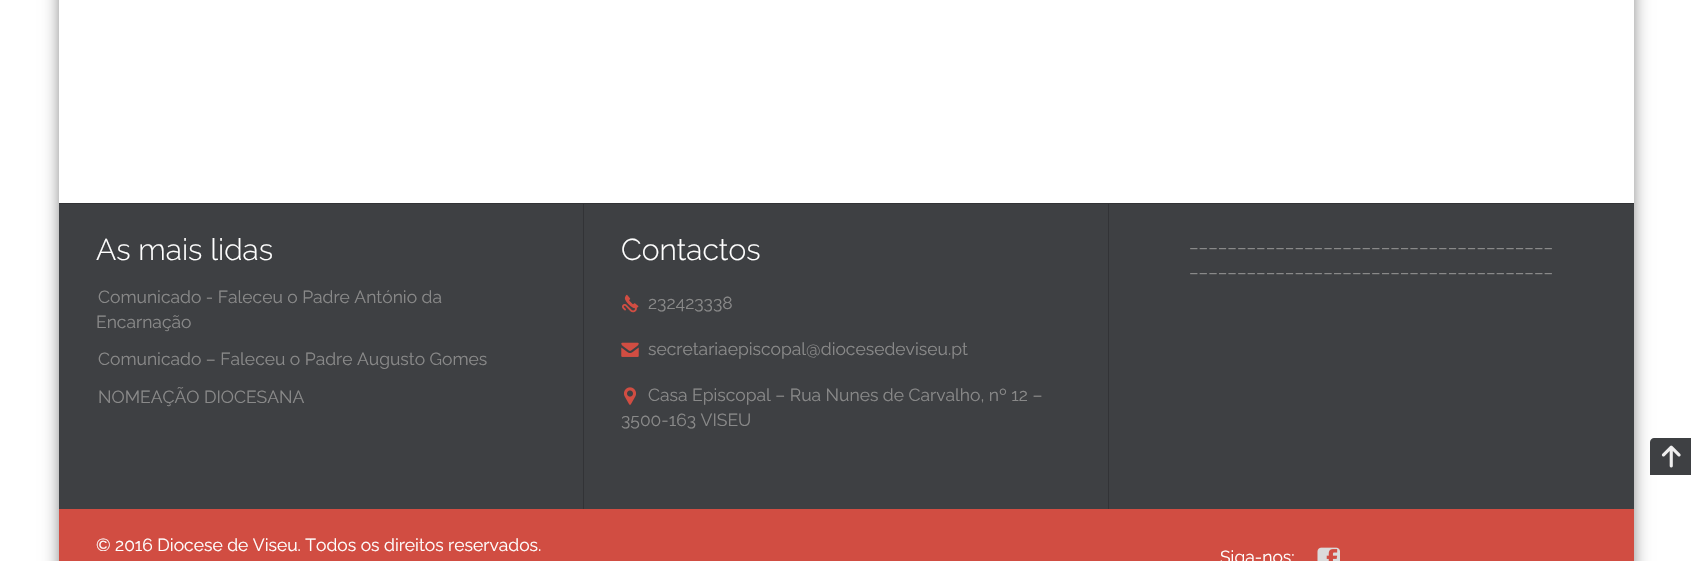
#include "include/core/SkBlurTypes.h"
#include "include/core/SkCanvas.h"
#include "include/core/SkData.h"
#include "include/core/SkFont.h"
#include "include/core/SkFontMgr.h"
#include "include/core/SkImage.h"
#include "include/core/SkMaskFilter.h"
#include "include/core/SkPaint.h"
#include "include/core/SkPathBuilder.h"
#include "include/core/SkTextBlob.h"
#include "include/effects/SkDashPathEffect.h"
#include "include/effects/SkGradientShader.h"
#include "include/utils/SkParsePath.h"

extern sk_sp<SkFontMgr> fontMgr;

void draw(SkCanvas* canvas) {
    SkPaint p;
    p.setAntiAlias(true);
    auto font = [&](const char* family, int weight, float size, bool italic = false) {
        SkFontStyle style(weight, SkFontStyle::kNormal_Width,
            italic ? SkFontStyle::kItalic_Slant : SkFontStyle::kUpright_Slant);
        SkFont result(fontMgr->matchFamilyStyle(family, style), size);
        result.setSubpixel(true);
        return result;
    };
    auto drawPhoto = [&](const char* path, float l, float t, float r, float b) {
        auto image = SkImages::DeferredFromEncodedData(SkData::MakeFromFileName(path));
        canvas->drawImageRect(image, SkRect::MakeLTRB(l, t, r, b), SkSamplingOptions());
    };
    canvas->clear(0xFFFFFFFF);
    p.setColor(0xBF000000);
    p.setMaskFilter(SkMaskFilter::MakeBlur(kNormal_SkBlurStyle, 9.5f));
    canvas->drawRect(SkRect::MakeLTRB(64, -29, 1629, 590), p);
    p.setMaskFilter(nullptr);
    {
        const struct { float l, t, r, b; SkColor color; } items[] = {
            {59, 0, 1634, 203, 0xFFFFFFFF},
            {59, 204, 1634, 509, 0xFF3E4043},
            {59, 203, 1634, 204, 0xFF323336},
            {583, 204, 584, 509, 0xFF323336},
        };
        for (auto [l, t, r, b, color] : items) {
            p.setColor(color);
            canvas->drawRect(SkRect::MakeLTRB(l, t, r, b), p);
        }
    }
    auto font1 = font("Raleway", 300, 30);
    p.setColor(0xFFFFFFFF);
    canvas->drawString("As mais lidas", 96, 260, font1, p);
    auto font2 = font("Raleway", 400, 17.5f);
    p.setColor(0xFF898989);
    {
        const struct { const char* s; float x, y; } items[] = {
            {"Comunicado - Faleceu o Padre António da", 98, 303},
            {"Encarnação", 96, 328},
            {"Comunicado – Faleceu o Padre Augusto Gomes", 98, 365},
            {"NOMEAÇÃO DIOCESANA", 98, 403},
        };
        for (auto [s, x, y] : items) {
            canvas->drawString(s, x, y, font2, p);
        }
    }
    p.setColor(0xFF323336);
    canvas->drawRect(SkRect::MakeLTRB(1108, 204, 1109, 509), p);
    p.setColor(0xFFFFFFFF);
    canvas->drawString("Contactos", 621, 260, font1, p);
    drawPhoto("media/1.png", 622, 294, 639, 313);
    p.setColor(0xFF898989);
    canvas->drawString("232423338", 648, 309, font2, p);
    drawPhoto("media/2.png", 621, 342, 639, 357);
    canvas->drawString("secretariaepiscopal@diocesedeviseu.pt", 648, 355, font2, p);
    drawPhoto("media/3.png", 624, 387, 636, 405);
    canvas->drawString("Casa Episcopal – Rua Nunes de Carvalho, nº 12 –", 648, 401, font2, p);
    canvas->drawString("3500-163 VISEU", 621, 426, font2, p);
    auto font3 = font("Raleway", 400, 18.75f);
    canvas->drawString("______________________________________", 1189, 248, font3, p);
    canvas->drawString("______________________________________", 1189, 273, font3, p);
    p.setColor(0xFFD14D42);
    canvas->drawRect(SkRect::MakeLTRB(59, 509, 1634, 561), p);
    p.setColor(0xFFFFFFFF);
    canvas->drawString("© 2016 Diocese de Viseu. Todos os direitos reservados.", 96, 551, font2, p);
    canvas->drawString("Siga-nos:", 1220, 563, font2, p);
    drawPhoto("media/4.png", 1317, 547, 1340, 561);
    p.setColor(0xFF3E4043);
    canvas->drawPath(SkPathBuilder().moveTo(1654, 438).lineTo(1691, 438).lineTo(1691, 475).lineTo(1650, 475).lineTo(1650, 442).cubicTo(1650, 440, 1652, 438, 1654, 438).close().detach(), p);
    drawPhoto("media/5.png", 1661, 445, 1681, 468);
}
